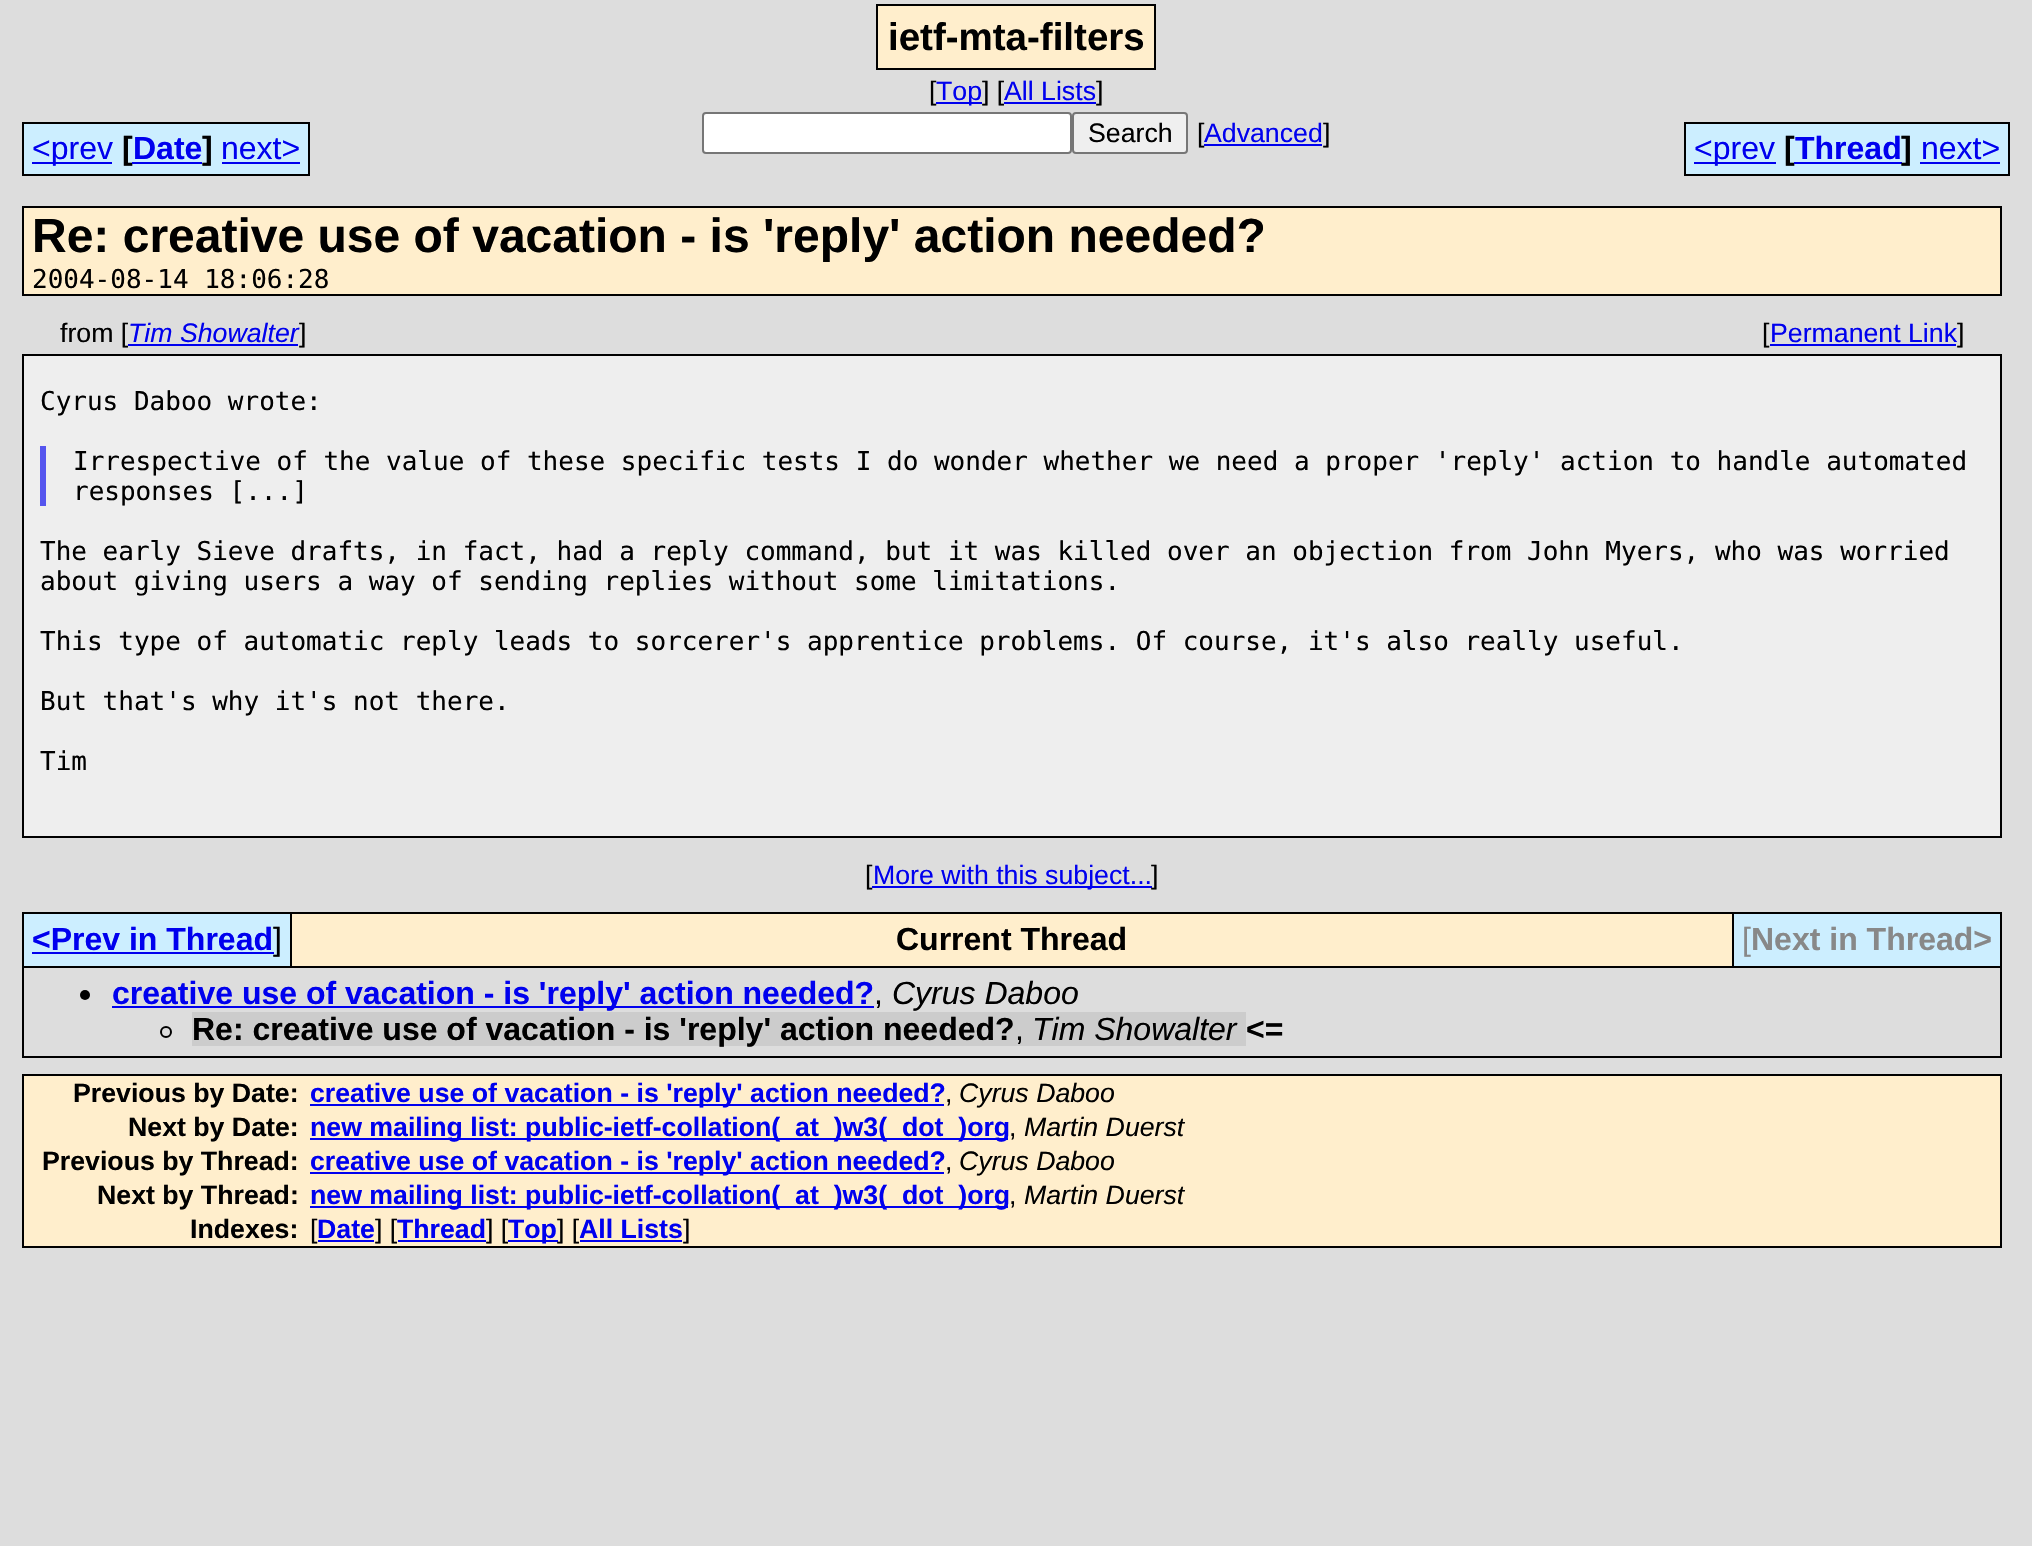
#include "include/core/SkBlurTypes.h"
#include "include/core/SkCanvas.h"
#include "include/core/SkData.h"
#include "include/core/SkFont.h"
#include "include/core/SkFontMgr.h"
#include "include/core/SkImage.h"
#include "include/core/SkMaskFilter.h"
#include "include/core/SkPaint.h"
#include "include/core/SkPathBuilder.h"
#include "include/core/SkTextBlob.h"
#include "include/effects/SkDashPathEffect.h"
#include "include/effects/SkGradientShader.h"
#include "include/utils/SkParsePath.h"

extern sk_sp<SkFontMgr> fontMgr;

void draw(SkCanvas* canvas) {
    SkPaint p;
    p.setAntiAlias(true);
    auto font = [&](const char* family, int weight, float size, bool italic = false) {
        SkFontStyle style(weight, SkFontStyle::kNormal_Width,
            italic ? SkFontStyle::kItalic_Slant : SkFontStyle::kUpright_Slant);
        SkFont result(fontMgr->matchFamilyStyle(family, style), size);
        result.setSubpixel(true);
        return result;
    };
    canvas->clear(0xFFDDDDDD);
    p.setColor(0xFFFFEECC);
    canvas->drawRect(SkRect::MakeLTRB(877, 5, 1155, 69), p);
    p.setStyle(SkPaint::kStroke_Style);
    p.setStrokeWidth(2);
    p.setColor(0xFF000000);
    canvas->drawRect(SkRect::MakeLTRB(877, 5, 1155, 69), p);
    auto font1 = font("Liberation Sans", 700, 38.5f);
    p.setStyle(SkPaint::kFill_Style);
    canvas->drawString("ietf-mta-filters", 888, 50, font1, p);
    auto font2 = font("Liberation Sans", 400, 26.7f);
    canvas->drawString("[", 929, 100, font2, p);
    p.setColor(0xFF0000EE);
    canvas->drawRect(SkRect::MakeLTRB(936, 102, 982, 104), p);
    canvas->drawString("Top", 936, 100, font2, p);
    p.setColor(0xFF000000);
    canvas->drawString("] [", 982, 100, font2, p);
    p.setColor(0xFF0000EE);
    canvas->drawString("All Lists", 1004, 100, font2, p);
    p.setColor(0xFF000000);
    canvas->drawString("]", 1096, 100, font2, p);
    {
        const struct { float l, t, r, b; SkColor color; } items[] = {
            {1004, 102, 1096, 104, 0xFF0000EE},
            {24, 124, 308, 174, 0xFFCCEEFF},
            {32, 162, 112, 164, 0xFF0000EE},
        };
        for (auto [l, t, r, b, color] : items) {
            p.setColor(color);
            canvas->drawRect(SkRect::MakeLTRB(l, t, r, b), p);
        }
    }
    auto font3 = font("Liberation Sans", 400, 32);
    canvas->drawString("<prev", 32, 159, font3, p);
    {
        const struct { float l, t, r, b; SkColor color; } items[] = {
            {22, 174, 222, 176, 0xFF000000},
            {22, 122, 310, 124, 0xFF000000},
            {22, 122, 24, 176, 0xFF000000},
        };
        for (auto [l, t, r, b, color] : items) {
            p.setColor(color);
            canvas->drawRect(SkRect::MakeLTRB(l, t, r, b), p);
        }
    }
    auto font4 = font("Liberation Sans", 700, 32);
    canvas->drawString("[", 122, 159, font4, p);
    p.setColor(0xFF0000EE);
    canvas->drawRect(SkRect::MakeLTRB(132, 162, 202, 164), p);
    canvas->drawString("Date", 133, 159, font4, p);
    p.setColor(0xFF000000);
    canvas->drawString("]", 202, 159, font4, p);
    p.setColor(0xFF0000EE);
    canvas->drawString("next>", 221, 159, font3, p);
    {
        const struct { float l, t, r, b; SkColor color; } items[] = {
            {308, 122, 310, 176, 0xFF000000},
            {222, 174, 310, 176, 0xFF000000},
            {222, 162, 300, 164, 0xFF0000EE},
        };
        for (auto [l, t, r, b, color] : items) {
            p.setColor(color);
            canvas->drawRect(SkRect::MakeLTRB(l, t, r, b), p);
        }
    }
    p.setColor(0xFFFFFFFF);
    canvas->drawRoundRect(SkRect::MakeLTRB(703, 113, 1071, 153), 3, 3, p);
    p.setStyle(SkPaint::kStroke_Style);
    p.setColor(0xFF767676);
    canvas->drawRoundRect(SkRect::MakeLTRB(703, 113, 1071, 153), 3, 3, p);
    p.setStyle(SkPaint::kFill_Style);
    p.setColor(0xFFEFEFEF);
    canvas->drawRoundRect(SkRect::MakeLTRB(1073, 113, 1187, 153), 3, 3, p);
    p.setStyle(SkPaint::kStroke_Style);
    p.setColor(0xFF767676);
    canvas->drawRoundRect(SkRect::MakeLTRB(1073, 113, 1187, 153), 3, 3, p);
    p.setStyle(SkPaint::kFill_Style);
    p.setColor(0xFF000000);
    canvas->drawString("Search", 1088, 142, font2, p);
    canvas->drawString("[", 1197, 142, font2, p);
    p.setColor(0xFF0000EE);
    canvas->drawRect(SkRect::MakeLTRB(1204, 144, 1322, 146), p);
    canvas->drawString("Advanced", 1204, 142, font2, p);
    p.setColor(0xFF000000);
    canvas->drawString("]", 1323, 142, font2, p);
    p.setColor(0xFFCCEEFF);
    canvas->drawRect(SkRect::MakeLTRB(1686, 124, 1776, 174), p);
    p.setColor(0xFF0000EE);
    canvas->drawRect(SkRect::MakeLTRB(1694, 162, 1776, 164), p);
    canvas->drawString("<prev", 1694, 159, font3, p);
    {
        const struct { float l, t, r, b; SkColor color; } items[] = {
            {1684, 122, 1776, 124, 0xFF000000},
            {1684, 174, 1776, 176, 0xFF000000},
            {1684, 122, 1686, 176, 0xFF000000},
            {1776, 122, 1784, 176, 0xFFCCEEFF},
            {1776, 174, 1912, 176, 0xFF000000},
            {1784, 124, 1912, 174, 0xFFCCEEFF},
        };
        for (auto [l, t, r, b, color] : items) {
            p.setColor(color);
            canvas->drawRect(SkRect::MakeLTRB(l, t, r, b), p);
        }
    }
    p.setColor(0xFF000000);
    canvas->drawString("[", 1784, 159, font4, p);
    p.setColor(0xFF0000EE);
    canvas->drawRect(SkRect::MakeLTRB(1794, 162, 1902, 164), p);
    canvas->drawString("Thread", 1795, 159, font4, p);
    p.setColor(0xFF000000);
    canvas->drawRect(SkRect::MakeLTRB(1776, 122, 1912, 124), p);
    canvas->drawString("]", 1901, 159, font4, p);
    {
        const struct { float l, t, r, b; SkColor color; } items[] = {
            {1912, 122, 1920, 176, 0xFFCCEEFF},
            {1912, 174, 1920, 176, 0xFF000000},
            {1920, 124, 2008, 174, 0xFFCCEEFF},
        };
        for (auto [l, t, r, b, color] : items) {
            p.setColor(color);
            canvas->drawRect(SkRect::MakeLTRB(l, t, r, b), p);
        }
    }
    p.setColor(0xFF0000EE);
    canvas->drawString("next>", 1921, 159, font3, p);
    {
        const struct { float l, t, r, b; SkColor color; } items[] = {
            {1912, 122, 2010, 124, 0xFF000000},
            {2008, 122, 2010, 176, 0xFF000000},
            {1920, 174, 2010, 176, 0xFF000000},
            {1920, 162, 2000, 164, 0xFF0000EE},
        };
        for (auto [l, t, r, b, color] : items) {
            p.setColor(color);
            canvas->drawRect(SkRect::MakeLTRB(l, t, r, b), p);
        }
    }
    p.setColor(0xFFFFEECC);
    canvas->drawRect(SkRect::MakeLTRB(23, 207, 2001, 295), p);
    p.setStyle(SkPaint::kStroke_Style);
    p.setColor(0xFF000000);
    canvas->drawRect(SkRect::MakeLTRB(23, 207, 2001, 295), p);
    auto font5 = font("Liberation Sans", 700, 48);
    p.setStyle(SkPaint::kFill_Style);
    canvas->drawString("Re: creative use of vacation - is 'reply' action needed?", 32, 252, font5, p);
    auto font6 = font("DejaVu Sans Mono", 400, 26);
    canvas->drawString("2004-08-14 18:06:28", 32, 288, font6, p);
    canvas->drawString("from [", 60, 342, font2, p);
    p.setColor(0xFF0000EE);
    canvas->drawRect(SkRect::MakeLTRB(128, 344, 298, 346), p);
    auto font7 = font("Liberation Sans", 400, 26.7f, true);
    canvas->drawString("Tim Showalter", 128, 342, font7, p);
    p.setColor(0xFF000000);
    canvas->drawString("]", 299, 342, font2, p);
    canvas->drawString("[", 1762, 342, font2, p);
    p.setColor(0xFF0000EE);
    canvas->drawRect(SkRect::MakeLTRB(1770, 344, 1956, 346), p);
    canvas->drawString("Permanent Link", 1770, 342, font2, p);
    p.setColor(0xFF000000);
    canvas->drawString("]", 1957, 342, font2, p);
    p.setColor(0xFFEEEEEE);
    canvas->drawRect(SkRect::MakeLTRB(23, 355, 2001, 837), p);
    p.setStyle(SkPaint::kStroke_Style);
    p.setColor(0xFF000000);
    canvas->drawRect(SkRect::MakeLTRB(23, 355, 2001, 837), p);
    p.setStyle(SkPaint::kFill_Style);
    canvas->drawString("Cyrus Daboo wrote:", 40, 410, font6, p);
    p.setColor(0xFF5555EE);
    canvas->drawRect(SkRect::MakeLTRB(40, 446, 46, 506), p);
    p.setColor(0xFF000000);
    {
        const struct { const char* s; float x, y; } items[] = {
            {"Irrespective of the value of these specific tests I do wonder whether we need a proper 'reply' action to handle automated", 73, 470},
            {"responses [...]", 73, 500},
            {"The early Sieve drafts, in fact, had a reply command, but it was killed over an objection from John Myers, who was worried", 40, 560},
            {"about giving users a way of sending replies without some limitations.", 40, 590},
            {"This type of automatic reply leads to sorcerer's apprentice problems. Of course, it's also really useful.", 40, 650},
            {"But that's why it's not there.", 40, 710},
            {"Tim", 40, 770},
        };
        for (auto [s, x, y] : items) {
            canvas->drawString(s, x, y, font6, p);
        }
    }
    canvas->drawString("[", 865, 884, font2, p);
    p.setColor(0xFF0000EE);
    canvas->drawRect(SkRect::MakeLTRB(872, 886, 1152, 888), p);
    canvas->drawString("More with this subject...", 873, 884, font2, p);
    p.setColor(0xFF000000);
    canvas->drawString("]", 1151, 884, font2, p);
    canvas->drawRect(SkRect::MakeLTRB(22, 912, 2002, 1058), p);
    p.setColor(0xFFCCEEFF);
    canvas->drawRect(SkRect::MakeLTRB(24, 914, 290, 966), p);
    p.setColor(0xFF0000EE);
    canvas->drawString("<Prev in Thread", 32, 950, font4, p);
    canvas->drawRect(SkRect::MakeLTRB(32, 952, 274, 954), p);
    p.setColor(0xFF000000);
    canvas->drawString("]", 273, 950, font3, p);
    p.setColor(0xFFFFEECC);
    canvas->drawRect(SkRect::MakeLTRB(292, 914, 1732, 966), p);
    p.setColor(0xFF000000);
    canvas->drawString("Current Thread", 896, 950, font4, p);
    p.setColor(0xFFCCEEFF);
    canvas->drawRect(SkRect::MakeLTRB(1734, 914, 2000, 966), p);
    p.setColor(0xFF888888);
    canvas->drawString("[", 1742, 950, font3, p);
    canvas->drawString("Next in Thread>", 1751, 950, font4, p);
    p.setColor(0xFFDDDDDD);
    canvas->drawRect(SkRect::MakeLTRB(24, 968, 2000, 1056), p);
    p.setColor(0xFF000000);
    canvas->drawCircle(85, 995, 5, p);
    p.setColor(0xFF0000EE);
    canvas->drawRect(SkRect::MakeLTRB(112, 1006, 874, 1008), p);
    canvas->drawString("creative use of vacation - is 'reply' action needed?", 112, 1004, font4, p);
    auto font8 = font("Liberation Sans", 400, 32, true);
    p.setColor(0xFF000000);
    canvas->drawString("Cyrus Daboo", 892, 1004, font8, p);
    canvas->drawString(",", 874, 1004, font3, p);
    p.setStyle(SkPaint::kStroke_Style);
    canvas->drawCircle(166, 1032, 5, p);
    p.setStyle(SkPaint::kFill_Style);
    p.setColor(0xFFCCCCCC);
    canvas->drawRect(SkRect::MakeLTRB(192, 1012, 1246, 1046), p);
    p.setColor(0xFF000000);
    canvas->drawString("Re: creative use of vacation - is 'reply' action needed?", 192, 1040, font4, p);
    canvas->drawString("Tim Showalter", 1032, 1040, font8, p);
    canvas->drawString("<=", 1246, 1040, font4, p);
    canvas->drawString(",", 1015, 1040, font3, p);
    p.setColor(0xFFFFEECC);
    canvas->drawRect(SkRect::MakeLTRB(23, 1075, 2001, 1247), p);
    p.setStyle(SkPaint::kStroke_Style);
    p.setColor(0xFF000000);
    canvas->drawRect(SkRect::MakeLTRB(23, 1075, 2001, 1247), p);
    auto font9 = font("Liberation Sans", 700, 26.7f);
    p.setStyle(SkPaint::kFill_Style);
    canvas->drawString("Previous by Date:", 73, 1102, font9, p);
    p.setColor(0xFF0000EE);
    canvas->drawRect(SkRect::MakeLTRB(310, 1104, 944, 1106), p);
    canvas->drawString("creative use of vacation - is 'reply' action needed?", 310, 1102, font9, p);
    p.setColor(0xFF000000);
    canvas->drawString(",", 945, 1102, font2, p);
    canvas->drawString("Cyrus Daboo", 959, 1102, font7, p);
    canvas->drawString("Next by Date:", 128, 1136, font9, p);
    p.setColor(0xFF0000EE);
    canvas->drawRect(SkRect::MakeLTRB(310, 1138, 1008, 1140), p);
    canvas->drawString("new mailing list: public-ietf-collation(_at_)w3(_dot_)org", 310, 1136, font9, p);
    p.setColor(0xFF000000);
    canvas->drawString(",", 1009, 1136, font2, p);
    canvas->drawString("Martin Duerst", 1024, 1136, font7, p);
    canvas->drawString("Previous by Thread:", 42, 1170, font9, p);
    p.setColor(0xFF0000EE);
    canvas->drawRect(SkRect::MakeLTRB(310, 1172, 944, 1174), p);
    canvas->drawString("creative use of vacation - is 'reply' action needed?", 310, 1170, font9, p);
    p.setColor(0xFF000000);
    canvas->drawString(",", 945, 1170, font2, p);
    canvas->drawString("Cyrus Daboo", 959, 1170, font7, p);
    canvas->drawString("Next by Thread:", 97, 1204, font9, p);
    p.setColor(0xFF0000EE);
    canvas->drawRect(SkRect::MakeLTRB(310, 1206, 1008, 1208), p);
    canvas->drawString("new mailing list: public-ietf-collation(_at_)w3(_dot_)org", 310, 1204, font9, p);
    p.setColor(0xFF000000);
    canvas->drawString(",", 1009, 1204, font2, p);
    canvas->drawString("Martin Duerst", 1024, 1204, font7, p);
    canvas->drawString("Indexes:", 190, 1238, font9, p);
    canvas->drawString("[", 310, 1238, font2, p);
    p.setColor(0xFF0000EE);
    canvas->drawString("Date", 317, 1238, font9, p);
    canvas->drawRect(SkRect::MakeLTRB(318, 1240, 374, 1242), p);
    p.setColor(0xFF000000);
    canvas->drawString("] [", 375, 1238, font2, p);
    p.setColor(0xFF0000EE);
    canvas->drawString("Thread", 397, 1238, font9, p);
    canvas->drawRect(SkRect::MakeLTRB(398, 1240, 486, 1242), p);
    p.setColor(0xFF000000);
    canvas->drawString("] [", 486, 1238, font2, p);
    p.setColor(0xFF0000EE);
    canvas->drawRect(SkRect::MakeLTRB(508, 1240, 558, 1242), p);
    canvas->drawString("Top", 508, 1238, font9, p);
    p.setColor(0xFF000000);
    canvas->drawString("] [", 557, 1238, font2, p);
    p.setColor(0xFF0000EE);
    canvas->drawString("All Lists", 579, 1238, font9, p);
    canvas->drawRect(SkRect::MakeLTRB(580, 1240, 682, 1242), p);
    p.setColor(0xFF000000);
    canvas->drawString("]", 683, 1238, font2, p);
}
